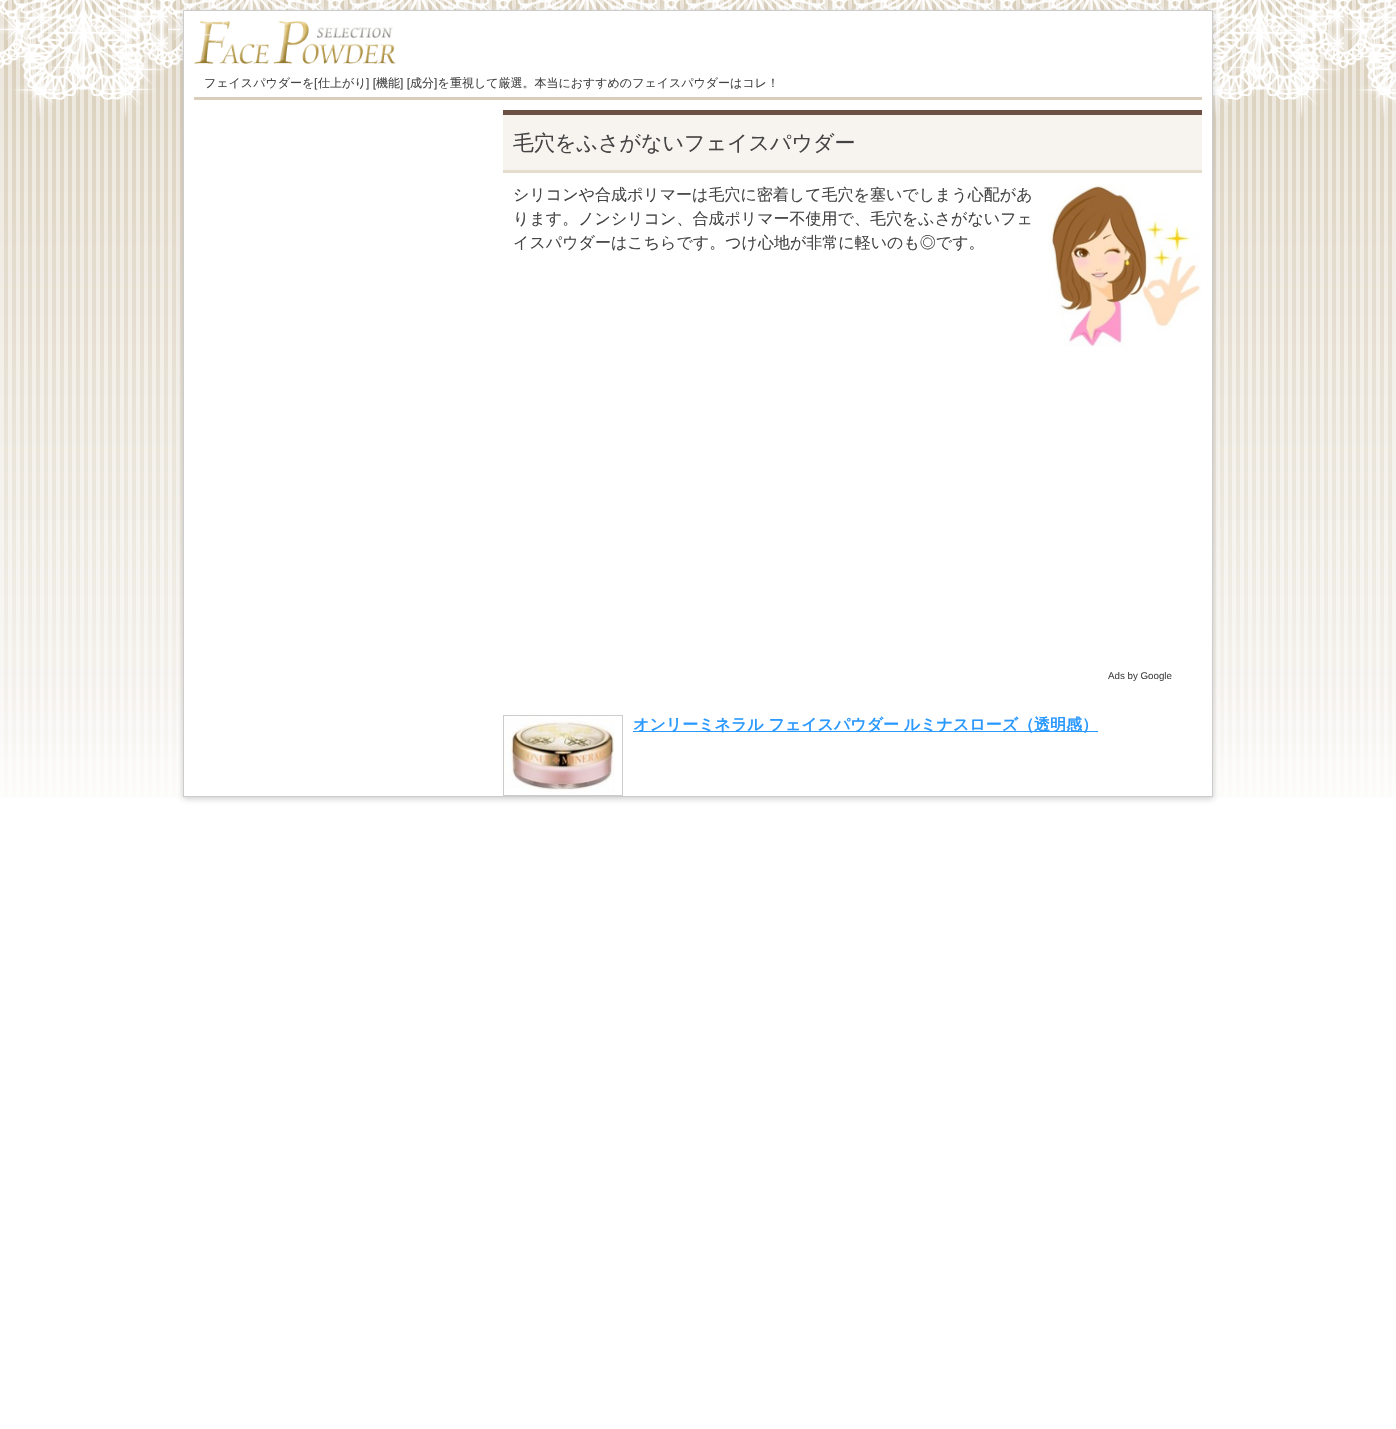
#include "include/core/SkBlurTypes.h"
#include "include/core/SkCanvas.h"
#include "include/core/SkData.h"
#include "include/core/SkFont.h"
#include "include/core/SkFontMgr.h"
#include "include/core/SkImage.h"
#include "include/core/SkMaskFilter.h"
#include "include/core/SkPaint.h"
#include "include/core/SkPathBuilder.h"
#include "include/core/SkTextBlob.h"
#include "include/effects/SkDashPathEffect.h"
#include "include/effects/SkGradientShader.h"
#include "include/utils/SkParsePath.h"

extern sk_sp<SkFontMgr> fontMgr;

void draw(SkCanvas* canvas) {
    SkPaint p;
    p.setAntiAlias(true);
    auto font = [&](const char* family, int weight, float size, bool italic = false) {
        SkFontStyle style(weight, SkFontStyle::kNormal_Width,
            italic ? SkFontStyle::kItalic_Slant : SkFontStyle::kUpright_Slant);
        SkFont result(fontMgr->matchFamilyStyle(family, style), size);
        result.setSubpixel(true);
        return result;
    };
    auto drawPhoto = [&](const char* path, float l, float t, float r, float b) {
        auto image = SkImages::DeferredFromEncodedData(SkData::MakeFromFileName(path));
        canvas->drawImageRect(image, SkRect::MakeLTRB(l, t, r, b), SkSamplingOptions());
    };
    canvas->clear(0xFFFFFFFF);
    drawPhoto("media/1.png", 0, 0, 1396, 798);
    p.setColor(0x4D646464);
    p.setMaskFilter(SkMaskFilter::MakeBlur(kNormal_SkBlurStyle, 3));
    canvas->drawRect(SkRect::MakeLTRB(183, 12, 1213, 799), p);
    p.setMaskFilter(nullptr);
    p.setColor(0xFFFFFFFF);
    canvas->drawRect(SkRect::MakeLTRB(183.5f, 10.5f, 1212.5f, 796.5f), p);
    p.setStyle(SkPaint::kStroke_Style);
    p.setStrokeWidth(1);
    p.setColor(0xFFCCCCCC);
    canvas->drawRect(SkRect::MakeLTRB(183.5f, 10.5f, 1212.5f, 796.5f), p);
    p.setStyle(SkPaint::kFill_Style);
    p.setColor(0xFFD9CEB9);
    canvas->drawRect(SkRect::MakeLTRB(194, 97, 1202, 100), p);
    drawPhoto("media/2.png", 194, 21, 396, 64);
    auto font1 = font("WenQuanYi Zen Hei", 500, 12);
    p.setColor(0xFF444444);
    canvas->drawString("フェイスパウダーを", 204, 87, font1, p);
    auto font2 = font("Liberation Sans", 400, 12);
    canvas->drawString("[", 314, 87, font2, p);
    canvas->drawString("仕上がり", 318, 87, font1, p);
    canvas->drawString("] [", 366, 87, font2, p);
    canvas->drawString("機能", 376, 87, font1, p);
    canvas->drawString("] [", 400, 87, font2, p);
    canvas->drawString("成分 を重視して厳選。本当におすすめのフェイスパウダーはコレ！", 410, 87, font1, p);
    canvas->drawString("]", 434, 87, font2, p);
    {
        const struct { float l, t, r, b; SkColor color; } items[] = {
            {503, 115, 1202, 170, 0xFFF7F4F0},
            {503, 110, 1202, 115, 0xFF6C5245},
            {503, 170, 1202, 173, 0xFFE4DCCD},
        };
        for (auto [l, t, r, b, color] : items) {
            p.setColor(color);
            canvas->drawRect(SkRect::MakeLTRB(l, t, r, b), p);
        }
    }
    auto font3 = font("WenQuanYi Zen Hei", 500, 21);
    p.setColor(0xFF444444);
    canvas->drawString("毛穴をふさがないフェイスパウダー", 513, 150, font3, p);
    auto font4 = font("WenQuanYi Zen Hei", 500, 16);
    {
        const struct { const char* s; float x, y; } items[] = {
            {"シリコンや合成ポリマーは毛穴に密着して毛穴を塞いでしまう心配があ", 513, 200},
            {"ります。ノンシリコン、合成ポリマー不使用で、毛穴をふさがないフェ", 513, 224},
            {"イスパウダーはこちらです。つけ心地が非常に軽いのも◎です。", 513, 248},
        };
        for (auto [s, x, y] : items) {
            canvas->drawString(s, x, y, font4, p);
        }
    }
    drawPhoto("media/3.png", 1048, 183, 1201, 347);
    auto font5 = font("Liberation Sans", 400, 9.75f);
    canvas->drawString("Ads by Google", 1108, 679, font5, p);
    p.setStyle(SkPaint::kStroke_Style);
    p.setColor(0xFFCCCCCC);
    canvas->drawRect(SkRect::MakeLTRB(503.5f, 715.5f, 622.5f, 795.5f), p);
    drawPhoto("media/4.png", 504, 716, 615, 794);
    p.setStyle(SkPaint::kFill_Style);
    p.setColor(0xFF2A99FF);
    canvas->drawRect(SkRect::MakeLTRB(633, 731, 1098, 732), p);
    auto font6 = font("WenQuanYi Zen Hei", 700, 16);
    canvas->drawString("オンリーミネラル フェイスパウダー ルミナスローズ（透明感）", 633, 730, font6, p);
}
